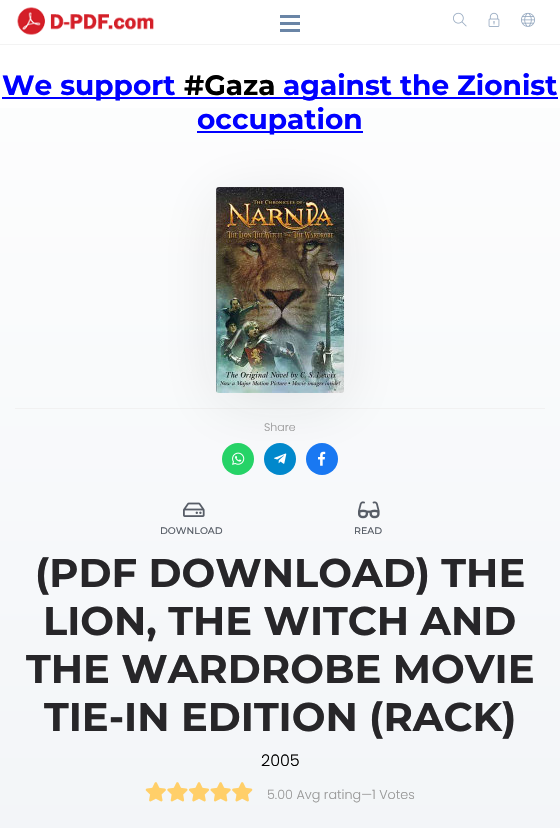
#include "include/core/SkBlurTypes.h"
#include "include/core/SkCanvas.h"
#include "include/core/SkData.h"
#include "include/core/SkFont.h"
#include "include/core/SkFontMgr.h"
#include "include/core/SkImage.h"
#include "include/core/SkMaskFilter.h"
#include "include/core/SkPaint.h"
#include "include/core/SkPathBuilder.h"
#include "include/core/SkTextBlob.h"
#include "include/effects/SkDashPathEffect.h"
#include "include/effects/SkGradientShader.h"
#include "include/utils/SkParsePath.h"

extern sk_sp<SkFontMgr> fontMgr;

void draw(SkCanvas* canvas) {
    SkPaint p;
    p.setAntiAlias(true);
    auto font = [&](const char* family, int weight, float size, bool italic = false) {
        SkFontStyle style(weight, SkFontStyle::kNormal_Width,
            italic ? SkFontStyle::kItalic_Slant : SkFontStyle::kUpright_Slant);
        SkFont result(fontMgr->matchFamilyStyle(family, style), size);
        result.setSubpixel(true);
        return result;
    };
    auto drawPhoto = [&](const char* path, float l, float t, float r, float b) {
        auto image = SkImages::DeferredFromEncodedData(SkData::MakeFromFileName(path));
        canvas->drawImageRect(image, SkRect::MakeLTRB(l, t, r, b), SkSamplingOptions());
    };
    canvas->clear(0xFFFFFFFF);
    {
        const SkColor colors[] = {0xFFFEFEFE, 0xFFE9EEF3};
        const float stops[] = {0, 1};
        const SkPoint ends[] = {{280, 0}, {280, 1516}};
        p.setShader(SkGradientShader::MakeLinear(ends, colors, stops, 2, SkTileMode::kClamp));
        p.setAlpha(255);
    }
    canvas->drawRect(SkRect::MakeLTRB(0, 108, 560, 828), p);
    p.setShader(nullptr);
    p.setColor(0xFFF3F3F3);
    canvas->drawRect(SkRect::MakeLTRB(0, 44, 560, 45), p);
    drawPhoto("media/1.png", 17, 7, 154, 35);
    {
        const struct { float l, t, r, b; SkColor color; } items[] = {
            {280, 22, 300, 25, 0xFF6A85A6},
            {280, 15, 300, 18, 0xFF6A85A6},
            {280, 29, 300, 32, 0xFF6A85A6},
        };
        for (auto [l, t, r, b, color] : items) {
            p.setColor(color);
            canvas->drawRect(SkRect::MakeLTRB(l, t, r, b), p);
        }
    }
    drawPhoto("media/2.png", 453, 12, 467, 27);
    drawPhoto("media/3.png", 488, 12, 500, 27);
    drawPhoto("media/4.png", 521, 12, 535, 27);
    p.setColor(0xFF0000FF);
    canvas->drawRect(SkRect::MakeLTRB(2, 97, 558, 99), p);
    auto font1 = font("Montserrat", 700, 28);
    canvas->drawString("We support", 2, 95, font1, p);
    p.setColor(0xFF000000);
    canvas->drawString("#Gaza", 184, 95, font1, p);
    p.setColor(0xFF0000FF);
    canvas->drawString("against the Zionist", 283, 95, font1, p);
    canvas->drawRect(SkRect::MakeLTRB(197, 131, 363, 133), p);
    canvas->drawString("occupation", 197, 129, font1, p);
    p.setColor(0xFFF1F1F1);
    canvas->drawRect(SkRect::MakeLTRB(15, 408, 545, 409), p);
    p.setColor(0xFF25D366);
    canvas->drawCircle(238, 459, 16, p);
    drawPhoto("media/6.png", 232, 452, 245, 465);
    p.setColor(0xFF0088CC);
    canvas->drawCircle(280, 459, 16, p);
    drawPhoto("media/7.png", 274, 453, 287, 464);
    p.setColor(0xFF1877F2);
    canvas->drawCircle(322, 459, 16, p);
    drawPhoto("media/8.png", 318, 451, 326, 466);
    p.setColor(0x171D1D1F);
    p.setMaskFilter(SkMaskFilter::MakeBlur(kNormal_SkBlurStyle, 30));
    canvas->drawRoundRect(SkRect::MakeLTRB(216, 197, 344, 403), 3, 3, p);
    p.setMaskFilter(nullptr);
    drawPhoto("media/5.png", 216, 187, 344, 393);
    auto font2 = font("Poppins", 300, 11);
    p.setColor(0xFF999999);
    canvas->drawString("Share", 264, 431, font2, p);
    drawPhoto("media/9.png", 183, 502, 205, 517);
    auto font3 = font("Montserrat", 500, 9.5f);
    p.setColor(0xFF575D66);
    canvas->drawString("DOWNLOAD", 160, 534, font3, p);
    drawPhoto("media/10.png", 358, 501, 380, 519);
    canvas->drawString("READ", 354, 534, font3, p);
    auto font4 = font("Montserrat", 700, 40);
    p.setColor(0xFF272629);
    {
        const struct { const char* s; float x, y; } items[] = {
            {"(PDF DOWNLOAD) THE", 35, 587},
            {"LION, THE WITCH AND", 43, 635},
            {"THE WARDROBE MOVIE", 26, 683},
            {"TIE-IN EDITION (RACK)", 44, 731},
        };
        for (auto [s, x, y] : items) {
            canvas->drawString(s, x, y, font4, p);
        }
    }
    auto font5 = font("Poppins", 300, 16);
    p.setColor(0xFF000000);
    canvas->drawString("2005", 261, 766, font5, p);
    drawPhoto("media/11.png", 145, 782, 253, 802);
    drawPhoto("media/12.png", 145, 782, 253, 802);
    auto font6 = font("Poppins", 300, 12.75f);
    p.setColor(0xFF999999);
    canvas->drawString("5.00 Avg rating—1 Votes", 267, 799, font6, p);
}
